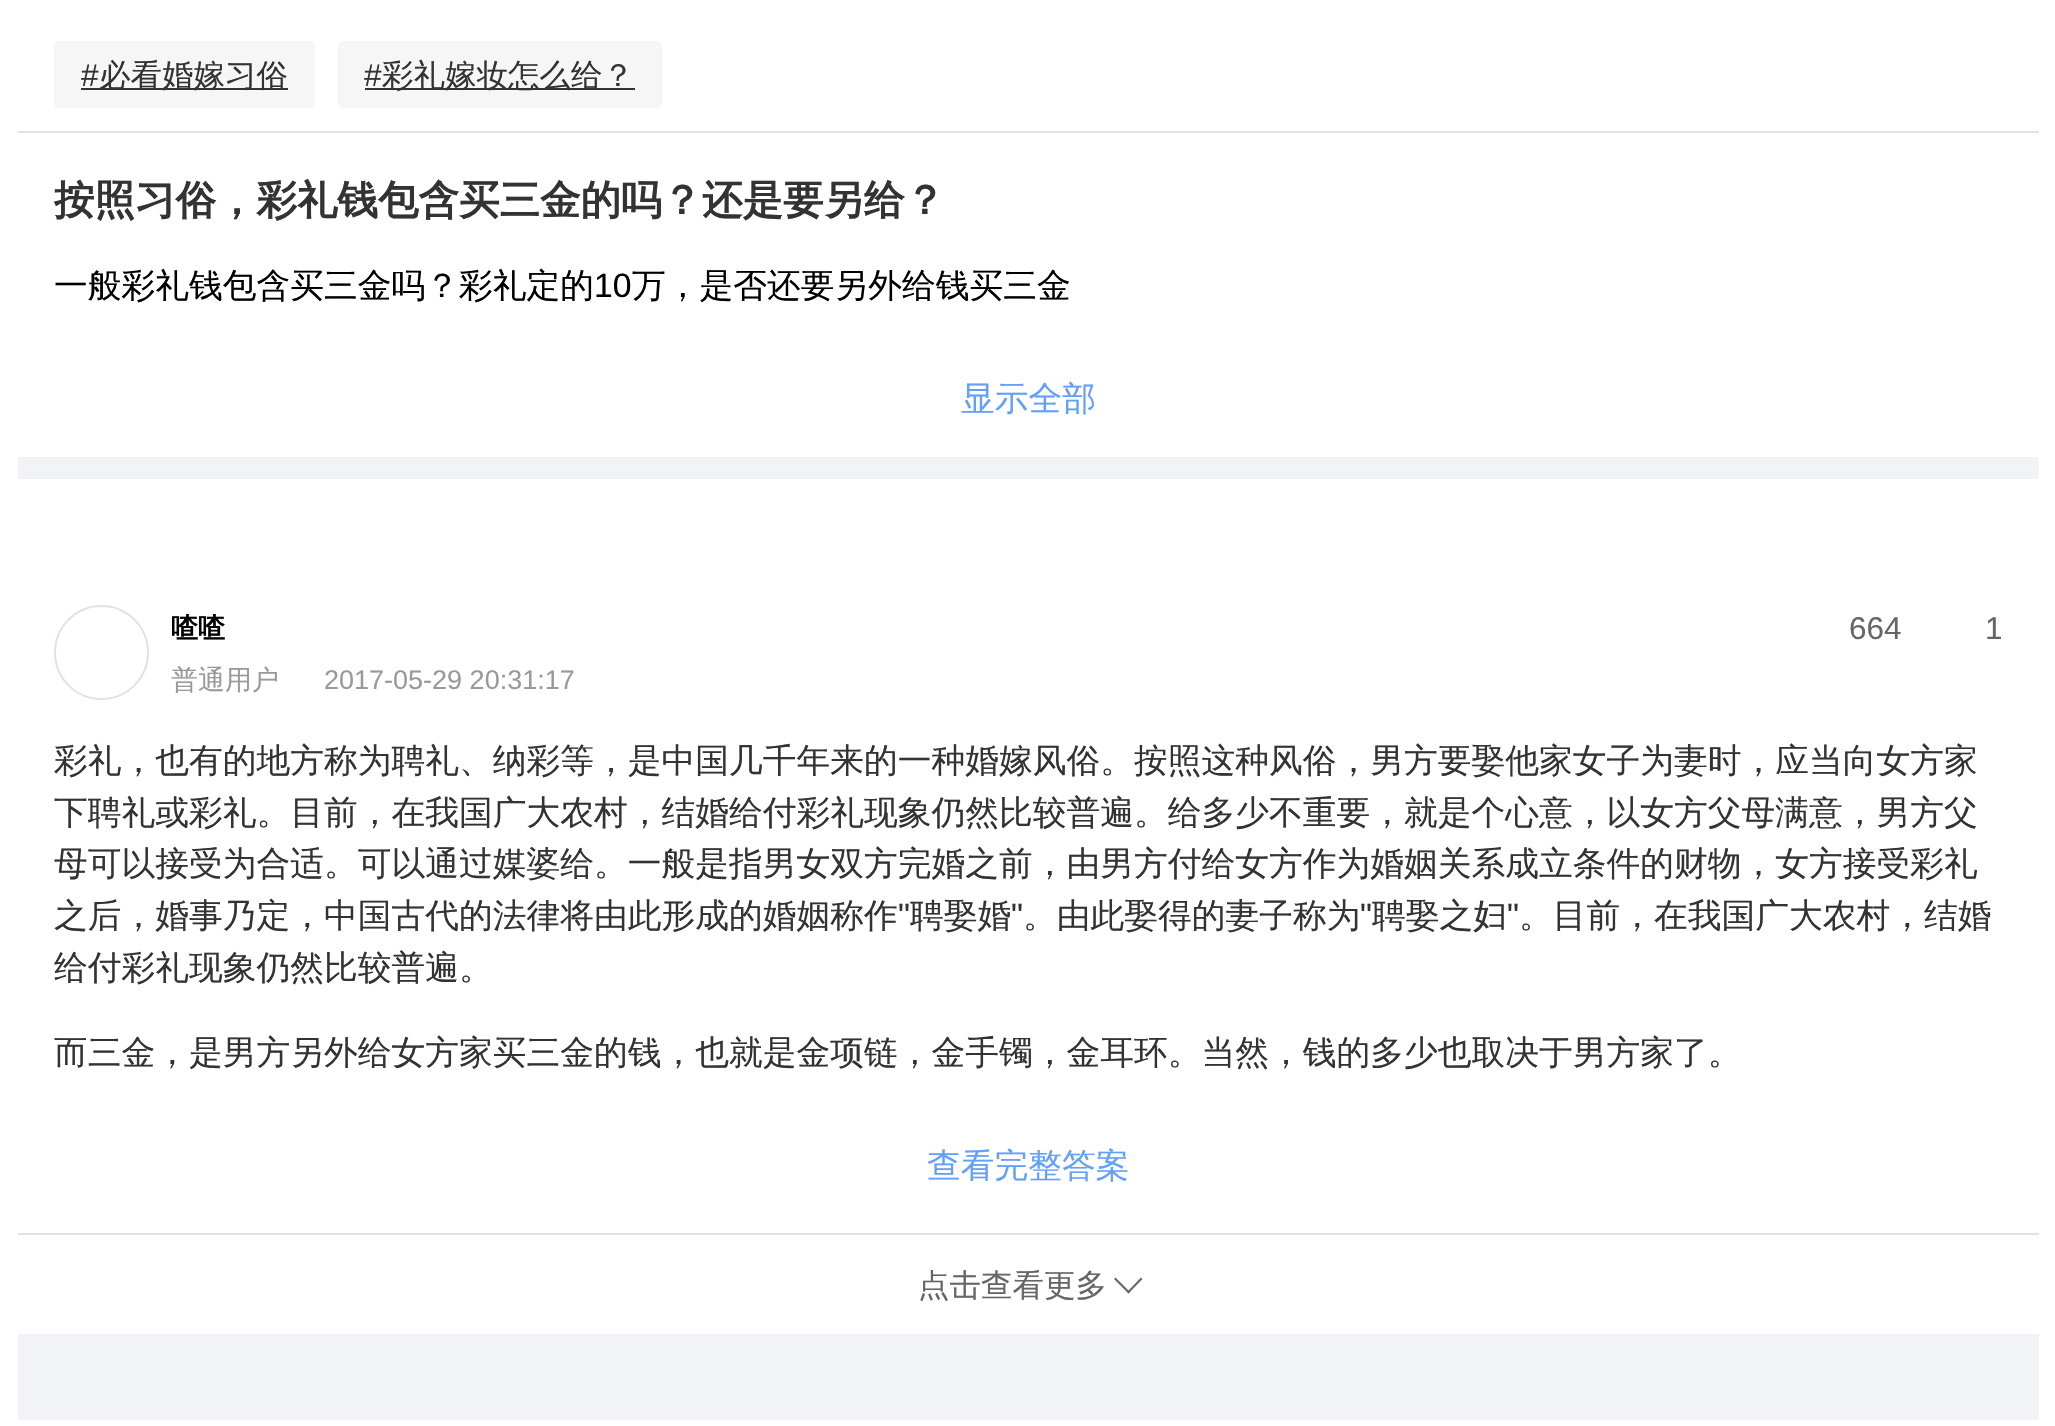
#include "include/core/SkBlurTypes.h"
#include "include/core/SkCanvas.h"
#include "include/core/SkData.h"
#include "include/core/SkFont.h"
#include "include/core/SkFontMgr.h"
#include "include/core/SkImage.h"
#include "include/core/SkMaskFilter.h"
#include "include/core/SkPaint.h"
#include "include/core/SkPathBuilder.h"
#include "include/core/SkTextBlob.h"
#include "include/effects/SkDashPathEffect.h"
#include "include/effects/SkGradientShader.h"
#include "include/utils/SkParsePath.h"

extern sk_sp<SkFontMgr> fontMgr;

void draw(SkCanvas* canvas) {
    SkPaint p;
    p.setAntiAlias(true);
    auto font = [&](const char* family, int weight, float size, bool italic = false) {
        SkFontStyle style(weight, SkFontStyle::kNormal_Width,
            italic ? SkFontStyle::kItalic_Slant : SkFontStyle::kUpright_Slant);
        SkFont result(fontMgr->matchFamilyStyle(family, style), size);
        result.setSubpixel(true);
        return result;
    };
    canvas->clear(0xFFFFFFFF);
    p.setColor(0xFFE2E2E2);
    canvas->drawRect(SkRect::MakeLTRB(18, 131, 2039, 133), p);
    p.setColor(0xFFF6F6F7);
    canvas->drawRoundRect(SkRect::MakeLTRB(54, 41, 315, 108), 5, 5, p);
    auto font1 = font("Liberation Sans", 400, 31.5f);
    p.setColor(0xFF333333);
    canvas->drawString("#", 81, 86, font1, p);
    canvas->drawRect(SkRect::MakeLTRB(81, 88, 288, 90), p);
    auto font2 = font("WenQuanYi Zen Hei", 500, 31.5f);
    canvas->drawString("必看婚嫁习俗", 99, 86, font2, p);
    p.setColor(0xFFF6F6F7);
    canvas->drawRoundRect(SkRect::MakeLTRB(338, 41, 662, 108), 5, 5, p);
    p.setColor(0xFF333333);
    canvas->drawString("#", 364, 86, font1, p);
    canvas->drawRect(SkRect::MakeLTRB(365, 88, 635, 90), p);
    canvas->drawString("彩礼嫁妆怎么给？", 382, 86, font2, p);
    auto font3 = font("WenQuanYi Zen Hei", 700, 40.5f);
    canvas->drawString("按照习俗，彩礼钱包含买三金的吗？还是要另给？", 54, 214, font3, p);
    auto font4 = font("WenQuanYi Zen Hei", 500, 33.75f);
    p.setColor(0xFF000000);
    canvas->drawString("一般彩礼钱包含买三金吗？彩礼定的", 54, 297, font4, p);
    auto font5 = font("Liberation Sans", 400, 33.75f);
    canvas->drawString("10", 594, 297, font5, p);
    canvas->drawString("万，是否还要另外给钱买三金", 632, 297, font4, p);
    p.setColor(0xFF63A0FB);
    canvas->drawString("显示全部", 961, 410, font4, p);
    p.setColor(0xFFF2F3F6);
    canvas->drawRect(SkRect::MakeLTRB(18, 457, 2039, 479), p);
    p.setStyle(SkPaint::kStroke_Style);
    p.setStrokeWidth(2);
    p.setColor(0xFFE2E2E2);
    canvas->drawCircle(101.5f, 652.5f, 46.5f, p);
    auto font6 = font("WenQuanYi Zen Hei", 700, 27);
    p.setStyle(SkPaint::kFill_Style);
    p.setColor(0xFF000000);
    canvas->drawString("喳喳", 171, 637, font6, p);
    p.setColor(0xFF666666);
    canvas->drawString("664", 1849, 639, font1, p);
    canvas->drawString("1", 1985, 639, font1, p);
    auto font7 = font("WenQuanYi Zen Hei", 500, 27);
    p.setColor(0xFF999999);
    canvas->drawString("普通用户", 171, 689, font7, p);
    auto font8 = font("Liberation Sans", 400, 27);
    canvas->drawString("2017-05-29 20:31:17", 324, 689, font8, p);
    p.setColor(0xFF333333);
    {
        const struct { const char* s; float x, y; } items[] = {
            {"彩礼，也有的地方称为聘礼、纳彩等，是中国几千年来的一种婚嫁风俗。按照这种风俗，男方要娶他家女子为妻时，应当向女方家", 54, 772},
            {"下聘礼或彩礼。目前，在我国广大农村，结婚给付彩礼现象仍然比较普遍。给多少不重要，就是个心意，以女方父母满意，男方父", 54, 824},
            {"母可以接受为合适。可以通过媒婆给。一般是指男女双方完婚之前，由男方付给女方作为婚姻关系成立条件的财物，女方接受彩礼", 54, 875},
            {"之后，婚事乃定，中国古代的法律将由此形成的婚姻称作", 54, 927},
        };
        for (auto [s, x, y] : items) {
            canvas->drawString(s, x, y, font4, p);
        }
    }
    canvas->drawString("\"", 898, 927, font5, p);
    canvas->drawString("聘娶婚", 910, 927, font4, p);
    canvas->drawString("\"", 1011, 927, font5, p);
    canvas->drawString("。由此娶得的妻子称为", 1023, 927, font4, p);
    canvas->drawString("\"", 1360, 927, font5, p);
    canvas->drawString("聘娶之妇", 1372, 927, font4, p);
    canvas->drawString("\"", 1507, 927, font5, p);
    {
        const struct { const char* s; float x, y; } items[] = {
            {"。目前，在我国广大农村，结婚", 1519, 927},
            {"给付彩礼现象仍然比较普遍。", 54, 979},
            {"而三金，是男方另外给女方家买三金的钱，也就是金项链，金手镯，金耳环。当然，钱的多少也取决于男方家了。", 54, 1064},
        };
        for (auto [s, x, y] : items) {
            canvas->drawString(s, x, y, font4, p);
        }
    }
    p.setColor(0xFF63A0FB);
    canvas->drawString("查看完整答案", 927, 1177, font4, p);
    p.setColor(0xFFE2E2E2);
    canvas->drawRect(SkRect::MakeLTRB(18, 1233, 2039, 1235), p);
    p.setColor(0xFF666666);
    canvas->drawString("点击查看更多", 918, 1296, font2, p);
    canvas->drawPath(SkPathBuilder().moveTo(1142.5f, 1279).lineTo(1128.5f, 1293.5f).lineTo(1127, 1292).lineTo(1141, 1277.5f).close().detach(), p);
    canvas->drawPath(SkPathBuilder().moveTo(1130, 1292).lineTo(1128.5f, 1293.5f).lineTo(1114, 1279).lineTo(1115.5f, 1277.5f).close().detach(), p);
    p.setColor(0xFFF2F3F6);
    canvas->drawRect(SkRect::MakeLTRB(18, 1334, 2039, 1420), p);
}
